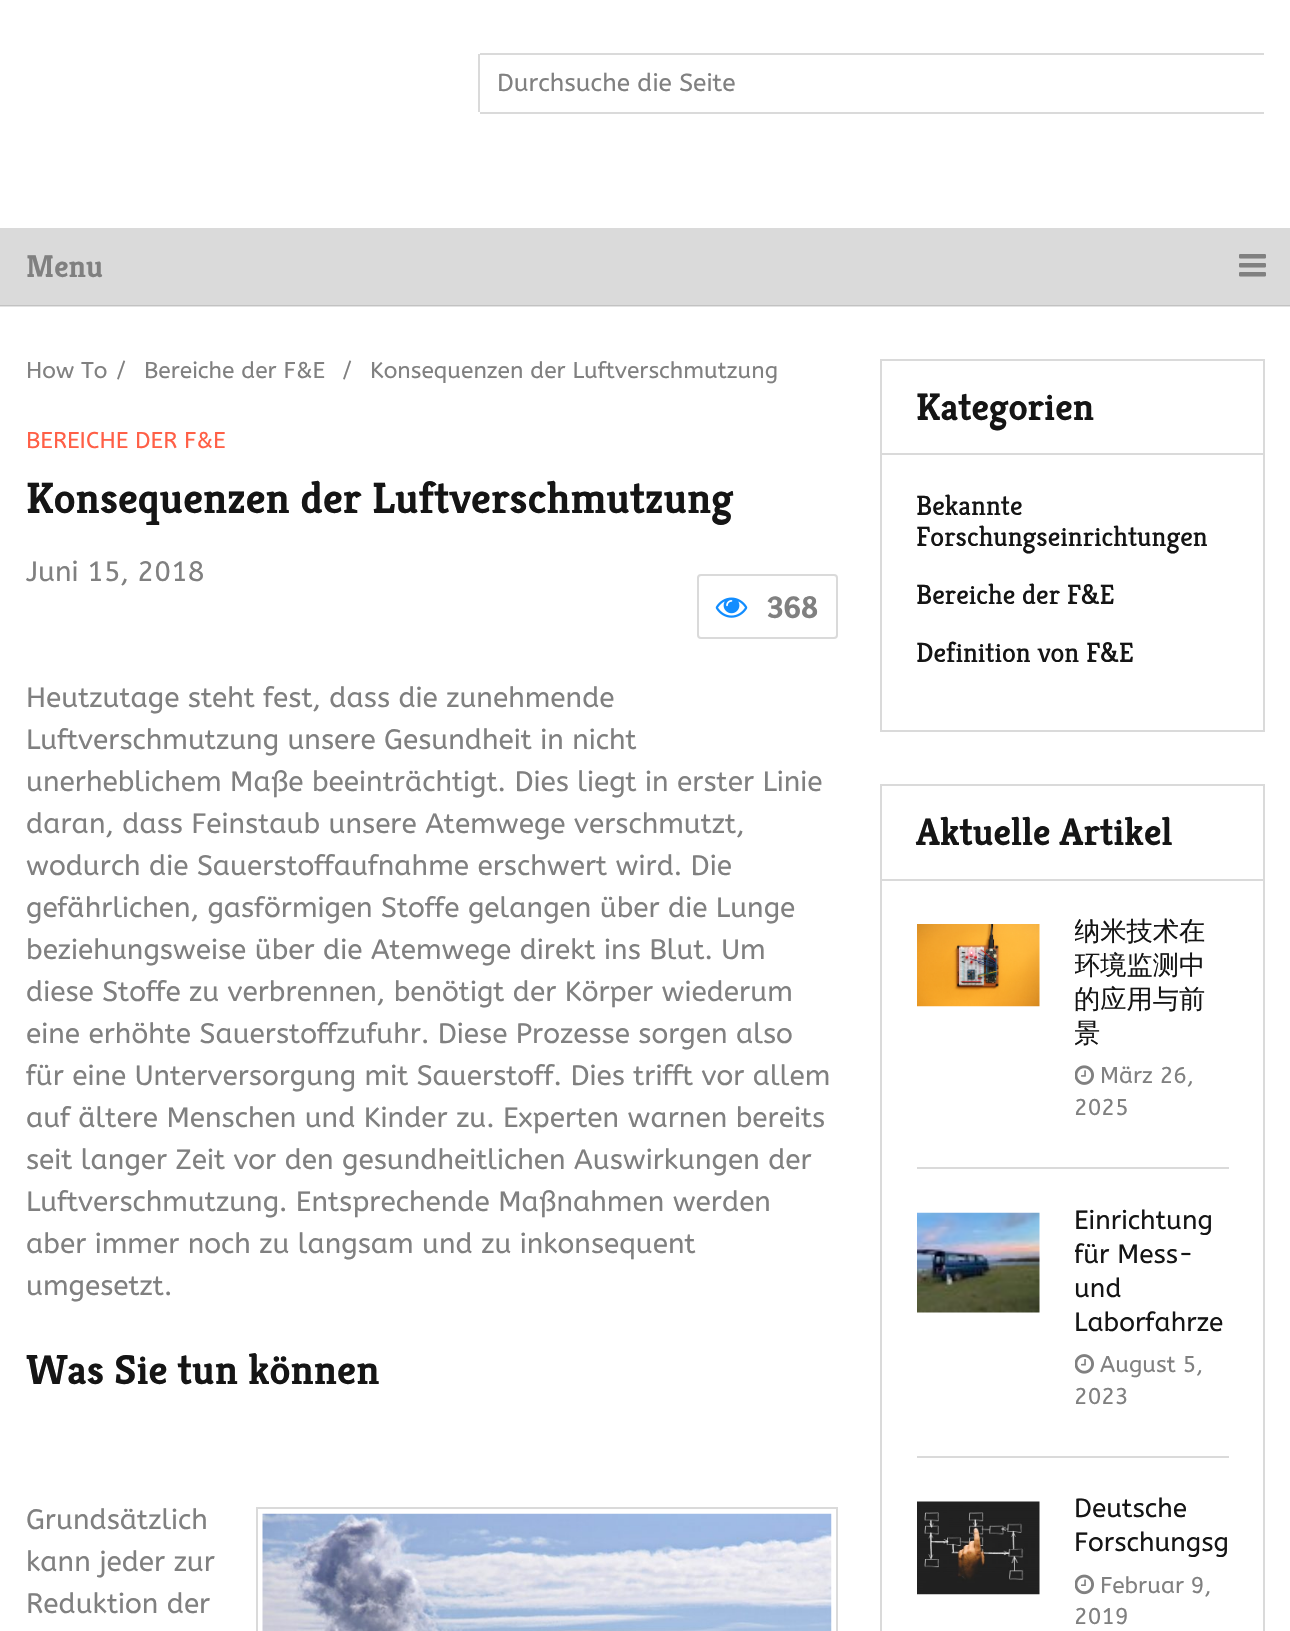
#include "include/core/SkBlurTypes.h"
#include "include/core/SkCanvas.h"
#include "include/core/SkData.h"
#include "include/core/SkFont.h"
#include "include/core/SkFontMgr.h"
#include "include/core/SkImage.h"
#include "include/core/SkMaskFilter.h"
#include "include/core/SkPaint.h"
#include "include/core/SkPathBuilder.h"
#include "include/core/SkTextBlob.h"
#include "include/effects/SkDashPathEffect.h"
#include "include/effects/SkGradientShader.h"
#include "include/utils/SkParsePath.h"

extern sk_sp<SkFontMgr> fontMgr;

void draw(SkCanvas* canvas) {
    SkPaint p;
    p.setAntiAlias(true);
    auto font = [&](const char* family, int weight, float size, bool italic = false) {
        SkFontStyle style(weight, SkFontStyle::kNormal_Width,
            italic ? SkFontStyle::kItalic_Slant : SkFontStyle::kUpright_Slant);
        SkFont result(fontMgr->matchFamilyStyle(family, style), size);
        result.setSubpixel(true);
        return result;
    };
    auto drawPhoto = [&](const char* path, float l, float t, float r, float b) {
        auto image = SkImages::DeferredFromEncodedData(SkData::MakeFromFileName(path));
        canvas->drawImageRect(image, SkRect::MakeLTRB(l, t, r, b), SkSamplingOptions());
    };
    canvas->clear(0xFFFFFFFF);
    {
        const struct { float l, t, r, b; SkColor color; } items[] = {
            {0, 306, 1290, 307, 0xFFE3E3E3},
            {480, 53, 1264, 55, 0xFFDADADA},
            {480, 112, 1264, 114, 0xFFDADADA},
            {478, 54, 480, 112, 0xFFDADADA},
        };
        for (auto [l, t, r, b, color] : items) {
            p.setColor(color);
            canvas->drawRect(SkRect::MakeLTRB(l, t, r, b), p);
        }
    }
    auto font1 = font("ABeeZee", 400, 24.5f);
    p.setColor(0xFF808080);
    canvas->drawString("Durchsuche die Seite", 497, 91, font1, p);
    p.setColor(0xFFDADADA);
    canvas->drawRect(SkRect::MakeLTRB(0, 228, 1290, 305), p);
    p.setColor(0xFFC2C2C2);
    canvas->drawRect(SkRect::MakeLTRB(0, 305, 1290, 306), p);
    auto font2 = font("Kreon", 700, 31.5f);
    p.setColor(0xFF808080);
    canvas->drawString("Menu", 26, 277, font2, p);
    drawPhoto("media/1.png", 1239, 254, 1266, 277);
    auto font3 = font("ABeeZee", 400, 22.75f);
    {
        const struct { const char* s; float x, y; } items[] = {
            {"How To", 26, 378},
            {"/", 116, 378},
            {"Bereiche der F&E", 144, 378},
            {"/", 342, 378},
            {"Konsequenzen der Luftverschmutzung", 370, 378},
        };
        for (auto [s, x, y] : items) {
            canvas->drawString(s, x, y, font3, p);
        }
    }
    p.setColor(0xFFFF5F46);
    canvas->drawString("BEREICHE DER F&E", 26, 448, font3, p);
    auto font4 = font("Kreon", 700, 43.75f);
    p.setColor(0xFF151515);
    canvas->drawString("Konsequenzen der Luftverschmutzung", 26, 513, font4, p);
    auto font5 = font("ABeeZee", 400, 28);
    p.setColor(0xFF808080);
    canvas->drawString("Juni 15, 2018", 26, 581, font5, p);
    p.setStyle(SkPaint::kStroke_Style);
    p.setStrokeWidth(2);
    p.setColor(0xFFDADADA);
    canvas->drawRoundRect(SkRect::MakeLTRB(698, 575, 837, 638), 3, 3, p);
    drawPhoto("media/2.png", 715, 597, 748, 618);
    p.setStyle(SkPaint::kFill_Style);
    p.setColor(0xFF808080);
    canvas->drawString("368", 767, 618, font2, p);
    {
        const struct { const char* s; float x, y; } items[] = {
            {"Heutzutage steht fest, dass die zunehmende", 26, 707},
            {"Luftverschmutzung unsere Gesundheit in nicht", 26, 749},
            {"unerheblichem Maße beeinträchtigt. Dies liegt in erster Linie", 26, 791},
            {"daran, dass Feinstaub unsere Atemwege verschmutzt,", 26, 833},
            {"wodurch die Sauerstoffaufnahme erschwert wird. Die", 26, 875},
            {"gefährlichen, gasförmigen Stoffe gelangen über die Lunge", 26, 917},
            {"beziehungsweise über die Atemwege direkt ins Blut. Um", 26, 959},
            {"diese Stoffe zu verbrennen, benötigt der Körper wiederum", 26, 1001},
            {"eine erhöhte Sauerstoffzufuhr. Diese Prozesse sorgen also", 26, 1043},
            {"für eine Unterversorgung mit Sauerstoff. Dies trifft vor allem", 26, 1085},
            {"auf ältere Menschen und Kinder zu. Experten warnen bereits", 26, 1127},
            {"seit langer Zeit vor den gesundheitlichen Auswirkungen der", 26, 1169},
            {"Luftverschmutzung. Entsprechende Maßnahmen werden", 26, 1211},
            {"aber immer noch zu langsam und zu inkonsequent", 26, 1253},
            {"umgesetzt.", 26, 1295},
        };
        for (auto [s, x, y] : items) {
            canvas->drawString(s, x, y, font5, p);
        }
    }
    auto font6 = font("Kreon", 700, 42);
    p.setColor(0xFF151515);
    canvas->drawString("Was Sie tun können", 26, 1384, font6, p);
    p.setColor(0xFF808080);
    canvas->drawString("Grundsätzlich", 26, 1529, font5, p);
    p.setStyle(SkPaint::kStroke_Style);
    p.setColor(0xFFDADADA);
    canvas->drawRect(SkRect::MakeLTRB(257, 1508, 837, 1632), p);
    drawPhoto("media/3.png", 262, 1513, 832, 1631);
    p.setStyle(SkPaint::kFill_Style);
    p.setColor(0xFF808080);
    canvas->drawString("kann jeder zur", 26, 1571, font5, p);
    canvas->drawString("Reduktion der", 26, 1613, font5, p);
    p.setStyle(SkPaint::kStroke_Style);
    p.setColor(0xFFDADADA);
    canvas->drawRect(SkRect::MakeLTRB(881, 360, 1264, 731), p);
    p.setStyle(SkPaint::kFill_Style);
    canvas->drawRect(SkRect::MakeLTRB(882, 453, 1264, 455), p);
    auto font7 = font("Kreon", 700, 38.5f);
    p.setColor(0xFF151515);
    canvas->drawString("Kategorien", 916, 420, font7, p);
    auto font8 = font("Kreon", 400, 28);
    {
        const struct { const char* s; float x, y; } items[] = {
            {"Bekannte", 916, 515},
            {"Forschungseinrichtungen", 916, 546},
            {"Bereiche der F&E", 916, 604},
            {"Definition von F&E", 916, 662},
        };
        for (auto [s, x, y] : items) {
            canvas->drawString(s, x, y, font8, p);
        }
    }
    p.setStyle(SkPaint::kStroke_Style);
    p.setColor(0xFFDADADA);
    canvas->drawRect(SkRect::MakeLTRB(881, 785, 1264, 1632), p);
    p.setStyle(SkPaint::kFill_Style);
    canvas->drawRect(SkRect::MakeLTRB(882, 879, 1264, 881), p);
    p.setColor(0xFF151515);
    canvas->drawString("Aktuelle Artikel", 916, 845, font7, p);
    p.setColor(0xFFDADADA);
    canvas->drawRect(SkRect::MakeLTRB(917, 1167, 1229, 1169), p);
    drawPhoto("media/4.png", 917, 924, 1040, 1007);
    canvas->save();
    canvas->clipRect(SkRect::MakeLTRB(1075, 915, 1229, 1132));
    auto font9 = font("WenQuanYi Zen Hei", 500, 26.25f);
    p.setColor(0xFF151515);
    canvas->drawString("纳米技术在", 1074, 940, font9, p);
    canvas->drawString("环境监测中", 1074, 974, font9, p);
    canvas->restore();
    canvas->drawString("的应用与前", 1074, 1008, font9, p);
    canvas->save();
    canvas->clipRect(SkRect::MakeLTRB(1075, 915, 1229, 1132));
    canvas->drawString("景", 1074, 1042, font9, p);
    canvas->restore();
    drawPhoto("media/5.png", 1075, 1065, 1094, 1085);
    p.setColor(0xFF808080);
    canvas->drawString("März 26,", 1100, 1083, font3, p);
    canvas->drawString("2025", 1074, 1115, font3, p);
    p.setColor(0xFFDADADA);
    canvas->drawRect(SkRect::MakeLTRB(917, 1456, 1229, 1458), p);
    drawPhoto("media/6.png", 917, 1212, 1040, 1313);
    auto font10 = font("ABeeZee", 400, 26.25f);
    p.setColor(0xFF151515);
    canvas->drawString("Einrichtung", 1074, 1229, font10, p);
    canvas->save();
    canvas->clipRect(SkRect::MakeLTRB(1075, 1204, 1229, 1421));
    canvas->drawString("für Mess-", 1074, 1263, font10, p);
    canvas->restore();
    canvas->drawString("und", 1074, 1297, font10, p);
    canvas->drawString("Laborfahrze", 1074, 1331, font10, p);
    drawPhoto("media/7.png", 1075, 1354, 1094, 1374);
    p.setColor(0xFF808080);
    canvas->drawString("August 5,", 1100, 1372, font3, p);
    canvas->drawString("2023", 1074, 1404, font3, p);
    drawPhoto("media/8.png", 917, 1501, 1040, 1595);
    p.setColor(0xFF151515);
    canvas->drawString("Deutsche", 1074, 1517, font10, p);
    canvas->drawString("Forschungsg", 1074, 1551, font10, p);
    drawPhoto("media/9.png", 1075, 1574, 1094, 1595);
    p.setColor(0xFF808080);
    canvas->drawString("Februar 9,", 1100, 1593, font3, p);
    canvas->drawString("2019", 1074, 1624, font3, p);
}
